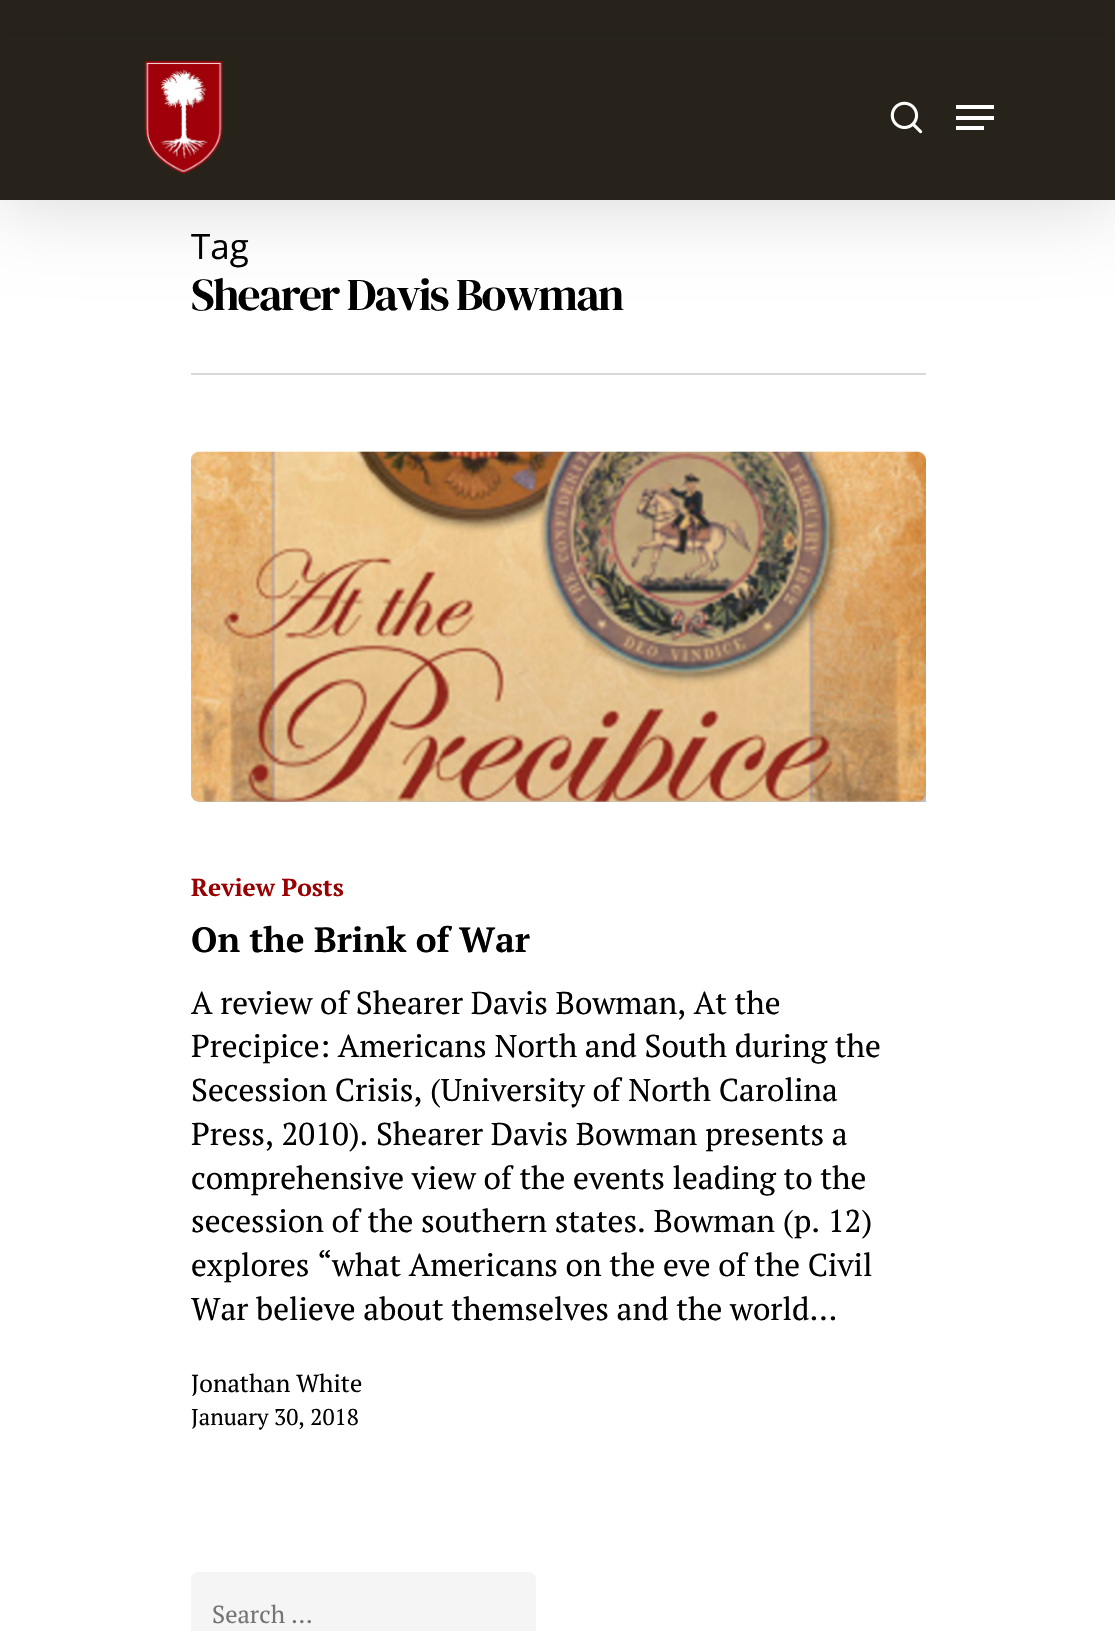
#include "include/core/SkBlurTypes.h"
#include "include/core/SkCanvas.h"
#include "include/core/SkData.h"
#include "include/core/SkFont.h"
#include "include/core/SkFontMgr.h"
#include "include/core/SkImage.h"
#include "include/core/SkMaskFilter.h"
#include "include/core/SkPaint.h"
#include "include/core/SkPathBuilder.h"
#include "include/core/SkTextBlob.h"
#include "include/effects/SkDashPathEffect.h"
#include "include/effects/SkGradientShader.h"
#include "include/utils/SkParsePath.h"

extern sk_sp<SkFontMgr> fontMgr;

void draw(SkCanvas* canvas) {
    SkPaint p;
    p.setAntiAlias(true);
    auto font = [&](const char* family, int weight, float size, bool italic = false) {
        SkFontStyle style(weight, SkFontStyle::kNormal_Width,
            italic ? SkFontStyle::kItalic_Slant : SkFontStyle::kUpright_Slant);
        SkFont result(fontMgr->matchFamilyStyle(family, style), size);
        result.setSubpixel(true);
        return result;
    };
    auto drawTracked = [&](const char* s, float x, float y, const SkFont& font, const SkPaint& ink, float letter, float word) {
        std::vector<SkGlyphID> glyphs(font.countText(s, strlen(s), SkTextEncoding::kUTF8));
        std::vector<float> xs(glyphs.size());
        font.textToGlyphs(s, strlen(s), SkTextEncoding::kUTF8, glyphs);
        font.getXPos(glyphs, xs, x);
        float extra = 0;
        for (size_t i = 0; i < glyphs.size(); i++) {
            xs[i] += extra;
            extra += letter + word * (glyphs[i] == font.unicharToGlyph(' '));
        }
        canvas->drawTextBlob(SkTextBlob::MakeFromPosHGlyphs(glyphs, xs, y, font), 0, 0, ink);
    };
    auto drawPhoto = [&](const char* path, float l, float t, float r, float b) {
        auto image = SkImages::DeferredFromEncodedData(SkData::MakeFromFileName(path));
        canvas->drawImageRect(image, SkRect::MakeLTRB(l, t, r, b), SkSamplingOptions());
    };
    canvas->clear(0xFFFFFFFF);
    p.setColor(0xFF27231B);
    canvas->drawRect(SkRect::MakeLTRB(0, 33, 1115, 35), p);
    p.setColor(0x26000000);
    p.setMaskFilter(SkMaskFilter::MakeBlur(kNormal_SkBlurStyle, 39.5f));
    canvas->drawRect(SkRect::MakeLTRB(0, 40, 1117, 205), p);
    p.setMaskFilter(nullptr);
    p.setColor(0xFF27231B);
    canvas->drawRect(SkRect::MakeLTRB(0, 35, 1115, 200), p);
    canvas->drawRect(SkRect::MakeLTRB(0, 0, 1115, 33), p);
    drawPhoto("media/1.png", 144, 61, 223, 174);
    drawPhoto("media/2.png", 890, 101, 923, 134);
    {
        const struct { float l, t, r, b; SkColor color; } items[] = {
            {956, 105, 994, 109, 0xFFFFFFFF},
            {956, 126, 984, 130, 0xFFFFFFFF},
            {956, 116, 994, 120, 0xFFFFFFFF},
            {191, 373, 926, 375, 0xFFD9D9D9},
        };
        for (auto [l, t, r, b, color] : items) {
            p.setColor(color);
            canvas->drawRect(SkRect::MakeLTRB(l, t, r, b), p);
        }
    }
    auto font1 = font("Open Sans", 400, 35);
    p.setColor(0xFF000000);
    canvas->drawString("Tag", 191, 259, font1, p);
    auto font2 = font("DM Serif Display", 400, 45.5f);
    drawTracked("Shearer Davis Bowman", 191, 310, font2, p, -1.75f, 0);
    p.setColor(0xFFC0C0C0);
    canvas->drawPath(SkPathBuilder().moveTo(200, 452).lineTo(917, 452).cubicTo(922, 452, 926, 456, 926, 461).lineTo(926, 802).lineTo(200, 802).cubicTo(195, 802, 191, 798, 191, 793).lineTo(191, 461).cubicTo(191, 456, 195, 452, 200, 452).close().detach(), p);
    drawPhoto("media/3.png", 191, 451, 926, 802);
    auto font3 = font("PT Serif", 700, 24.5f);
    p.setColor(0xFF9A0102);
    canvas->drawString("Review Posts", 191, 896, font3, p);
    auto font4 = font("PT Serif", 700, 35);
    p.setColor(0xFF000000);
    canvas->drawString("On the Brink of War", 191, 952, font4, p);
    auto font5 = font("PT Serif", 400, 31.5f);
    {
        const struct { const char* s; float x, y; } items[] = {
            {"A review of Shearer Davis Bowman, At the", 191, 1014},
            {"Precipice: Americans North and South during the", 191, 1057},
            {"Secession Crisis, (University of North Carolina", 191, 1101},
            {"Press, 2010). Shearer Davis Bowman presents a", 191, 1145},
            {"comprehensive view of the events leading to the", 191, 1189},
            {"secession of the southern states. Bowman (p. 12)", 191, 1232},
            {"explores “what Americans on the eve of the Civil", 191, 1276},
            {"War believe about themselves and the world…", 191, 1320},
        };
        for (auto [s, x, y] : items) {
            canvas->drawString(s, x, y, font5, p);
        }
    }
    auto font6 = font("PT Serif", 400, 24.5f);
    canvas->drawString("Jonathan White", 191, 1392, font6, p);
    auto font7 = font("PT Serif", 400, 22.75f);
    canvas->drawString("January 30, 2018", 191, 1425, font7, p);
    p.setColor(0xFFF5F5F5);
    canvas->drawRoundRect(SkRect::MakeLTRB(191, 1572, 536, 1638), 7, 7, p);
    p.setColor(0xFF757575);
    canvas->drawString("Search …", 212, 1623, font6, p);
}
